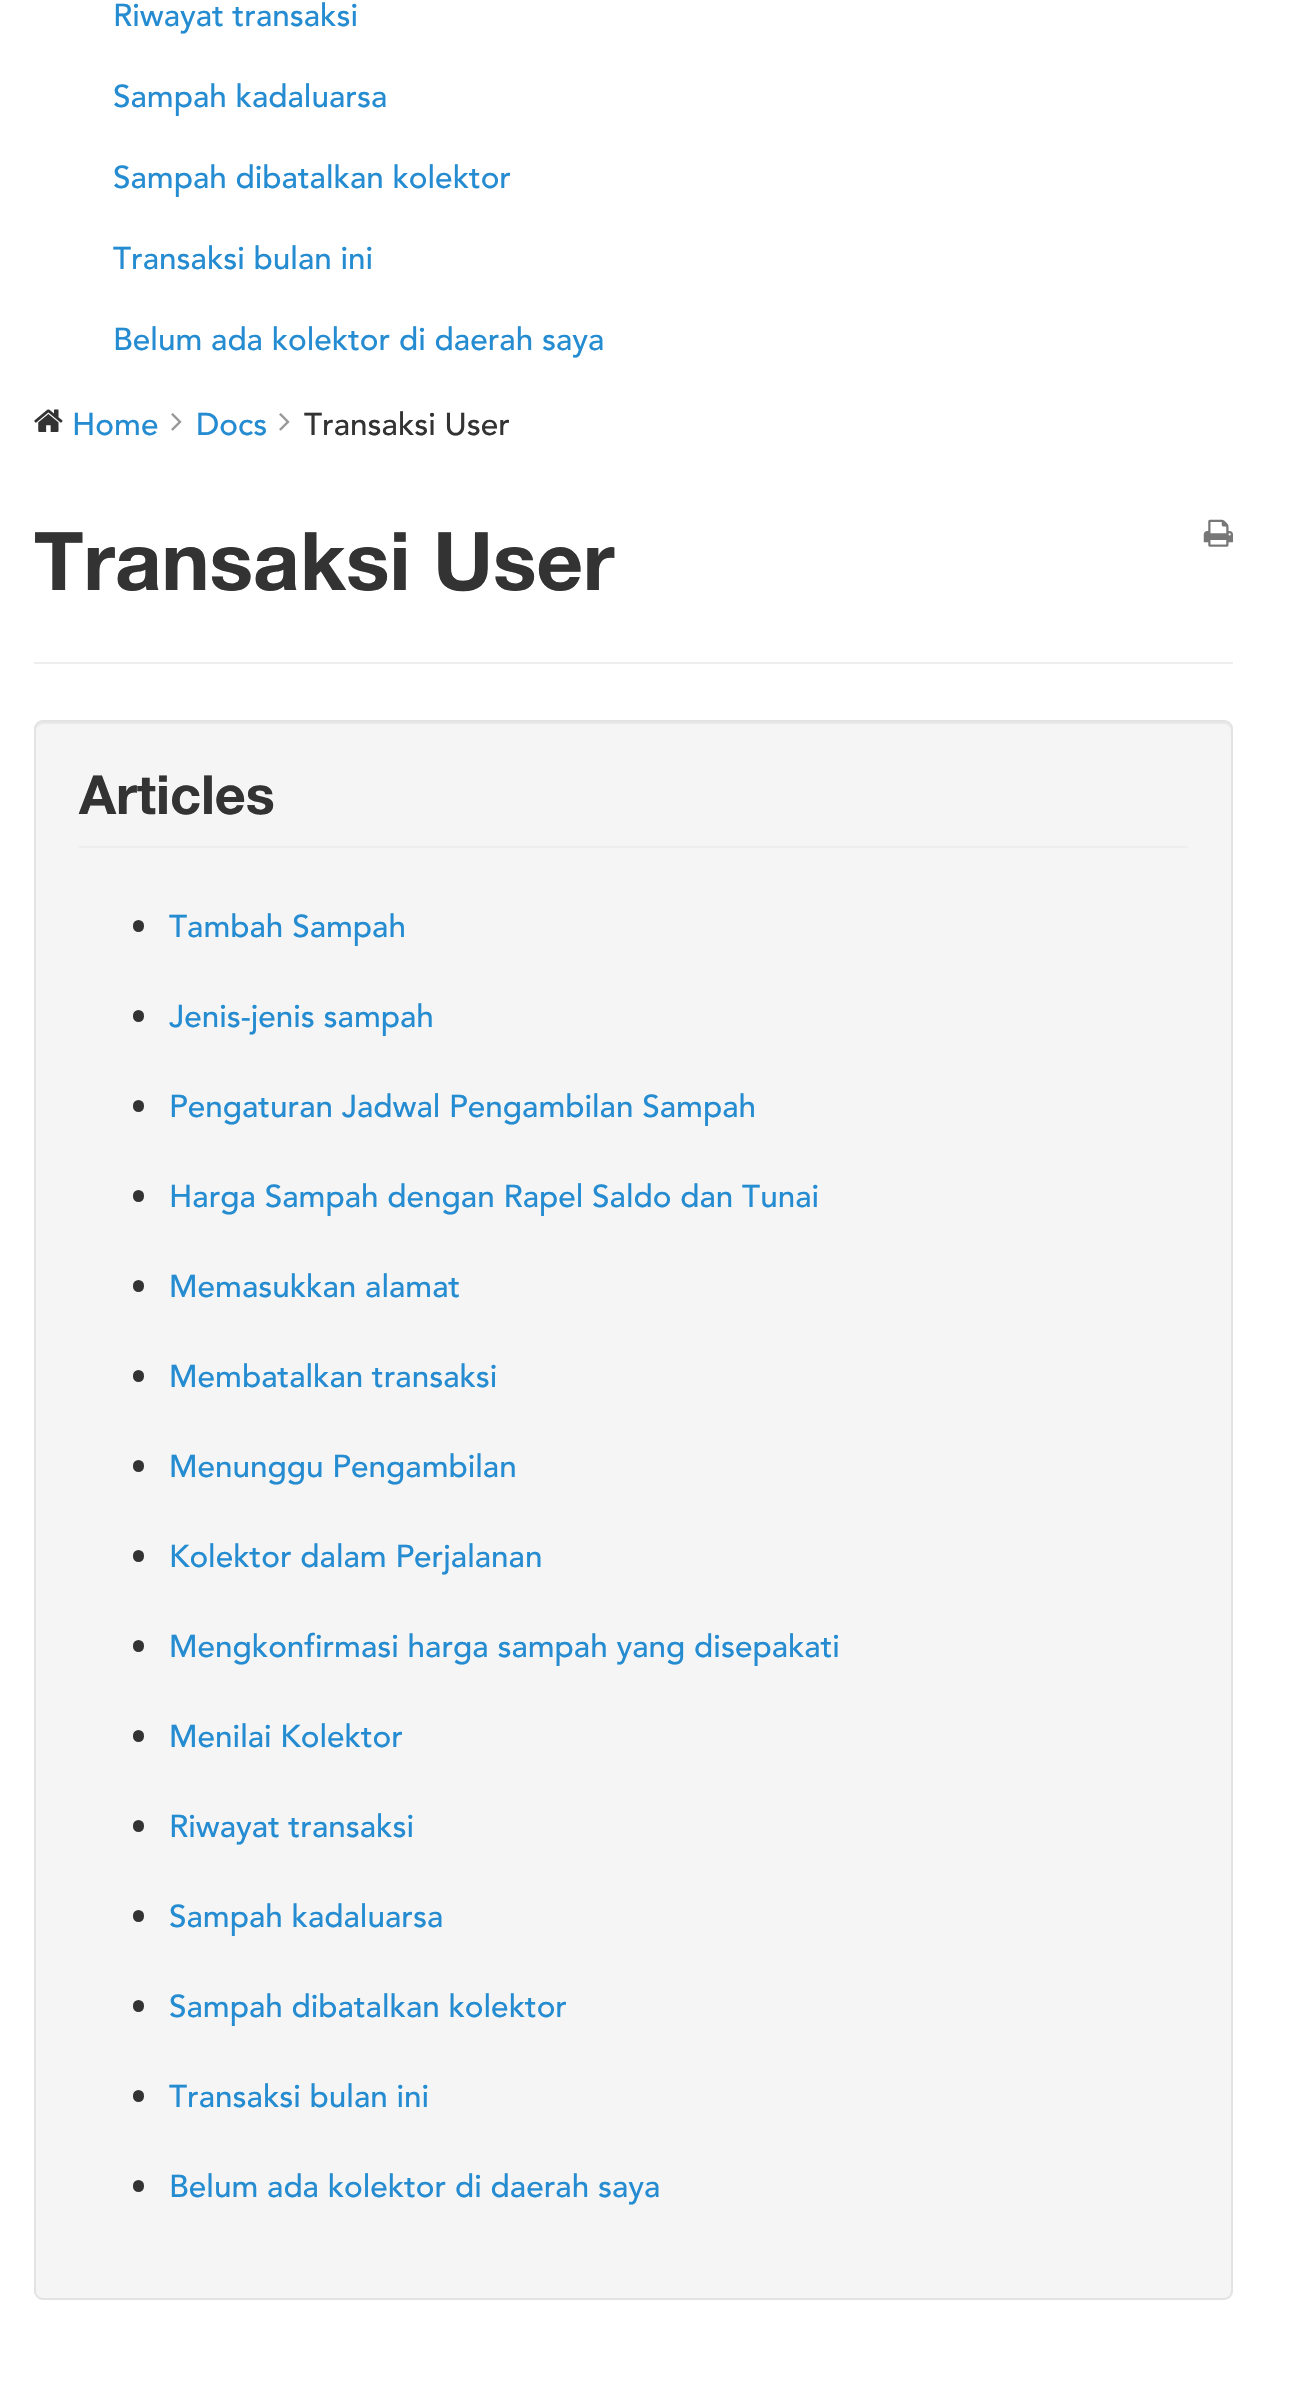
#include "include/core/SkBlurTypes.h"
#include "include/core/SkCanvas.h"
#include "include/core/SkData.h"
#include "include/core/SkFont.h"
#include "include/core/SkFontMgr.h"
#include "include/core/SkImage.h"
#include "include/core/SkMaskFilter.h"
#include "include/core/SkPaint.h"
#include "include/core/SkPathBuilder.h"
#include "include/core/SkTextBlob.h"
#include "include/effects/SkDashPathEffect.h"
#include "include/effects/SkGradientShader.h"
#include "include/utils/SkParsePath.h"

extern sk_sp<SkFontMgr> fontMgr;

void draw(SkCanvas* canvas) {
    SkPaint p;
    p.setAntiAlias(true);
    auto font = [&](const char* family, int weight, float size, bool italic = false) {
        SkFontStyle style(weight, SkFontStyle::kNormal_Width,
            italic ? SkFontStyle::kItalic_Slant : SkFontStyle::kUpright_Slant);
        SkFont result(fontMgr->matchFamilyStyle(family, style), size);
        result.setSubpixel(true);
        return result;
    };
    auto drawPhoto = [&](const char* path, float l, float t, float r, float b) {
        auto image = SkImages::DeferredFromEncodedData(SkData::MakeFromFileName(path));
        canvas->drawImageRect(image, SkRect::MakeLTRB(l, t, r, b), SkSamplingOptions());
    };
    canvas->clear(0xFFFFFFFF);
    auto font1 = font("Avenir", 500, 31.5f);
    p.setColor(0xFF258CD1);
    {
        const struct { const char* s; float x, y; } items[] = {
            {"Riwayat transaksi", 113, 26},
            {"Sampah kadaluarsa", 113, 107},
            {"Sampah dibatalkan kolektor", 113, 188},
            {"Transaksi bulan ini", 113, 269},
            {"Belum ada kolektor di daerah saya", 113, 350},
        };
        for (auto [s, x, y] : items) {
            canvas->drawString(s, x, y, font1, p);
        }
    }
    drawPhoto("media/1.png", 34, 409, 63, 432);
    canvas->drawString("Home", 72, 435, font1, p);
    drawPhoto("media/2.png", 171, 413, 182, 431);
    canvas->drawString("Docs", 196, 435, font1, p);
    drawPhoto("media/2.png", 279, 413, 290, 431);
    p.setColor(0xFF333333);
    canvas->drawString("Transaksi User", 304, 435, font1, p);
    p.setColor(0xFFEEEEEE);
    canvas->drawRect(SkRect::MakeLTRB(34, 662, 1233, 664), p);
    auto font2 = font("Helvetica Neue", 700, 81);
    p.setColor(0xFF333333);
    canvas->drawString("Transaksi User", 34, 590, font2, p);
    drawPhoto("media/3.png", 1203, 519, 1233, 547);
    p.setColor(0xFFF5F5F5);
    canvas->drawRoundRect(SkRect::MakeLTRB(34, 720, 1233, 2300), 9, 9, p);
    p.setColor(0xFFE9E9E9);
    canvas->drawPath(SkPathBuilder().moveTo(43, 724).lineTo(1224, 724).cubicTo(1228, 724, 1231, 728, 1231, 731).cubicTo(1231, 727, 1229, 722, 1224, 722).lineTo(43, 722).cubicTo(38, 722, 36, 727, 36, 731).cubicTo(36, 728, 39, 724, 43, 724).close().detach(), p);
    p.setStyle(SkPaint::kStroke_Style);
    p.setStrokeWidth(2);
    p.setColor(0xFFE3E3E3);
    canvas->drawRoundRect(SkRect::MakeLTRB(35, 721, 1232, 2299), 8, 8, p);
    p.setStyle(SkPaint::kFill_Style);
    p.setColor(0xFFEEEEEE);
    canvas->drawRect(SkRect::MakeLTRB(79, 846, 1188, 848), p);
    auto font3 = font("Helvetica Neue", 700, 54);
    p.setColor(0xFF333333);
    canvas->drawString("Articles", 79, 814, font3, p);
    canvas->drawRoundRect(SkRect::MakeLTRB(133, 920, 144, 932), 5.5f, 5.5f, p);
    p.setColor(0xFF258CD1);
    canvas->drawString("Tambah Sampah", 169, 937, font1, p);
    p.setColor(0xFF333333);
    canvas->drawRoundRect(SkRect::MakeLTRB(133, 1010, 144, 1022), 5.5f, 5.5f, p);
    p.setColor(0xFF258CD1);
    canvas->drawString("Jenis-jenis sampah", 169, 1027, font1, p);
    p.setColor(0xFF333333);
    canvas->drawRoundRect(SkRect::MakeLTRB(133, 1100, 144, 1112), 5.5f, 5.5f, p);
    p.setColor(0xFF258CD1);
    canvas->drawString("Pengaturan Jadwal Pengambilan Sampah", 169, 1117, font1, p);
    p.setColor(0xFF333333);
    canvas->drawRoundRect(SkRect::MakeLTRB(133, 1190, 144, 1202), 5.5f, 5.5f, p);
    p.setColor(0xFF258CD1);
    canvas->drawString("Harga Sampah dengan Rapel Saldo dan Tunai", 169, 1207, font1, p);
    p.setColor(0xFF333333);
    canvas->drawRoundRect(SkRect::MakeLTRB(133, 1280, 144, 1292), 5.5f, 5.5f, p);
    p.setColor(0xFF258CD1);
    canvas->drawString("Memasukkan alamat", 169, 1297, font1, p);
    p.setColor(0xFF333333);
    canvas->drawRoundRect(SkRect::MakeLTRB(133, 1370, 144, 1382), 5.5f, 5.5f, p);
    p.setColor(0xFF258CD1);
    canvas->drawString("Membatalkan transaksi", 169, 1387, font1, p);
    p.setColor(0xFF333333);
    canvas->drawRoundRect(SkRect::MakeLTRB(133, 1460, 144, 1472), 5.5f, 5.5f, p);
    p.setColor(0xFF258CD1);
    canvas->drawString("Menunggu Pengambilan", 169, 1477, font1, p);
    p.setColor(0xFF333333);
    canvas->drawRoundRect(SkRect::MakeLTRB(133, 1550, 144, 1562), 5.5f, 5.5f, p);
    p.setColor(0xFF258CD1);
    canvas->drawString("Kolektor dalam Perjalanan", 169, 1567, font1, p);
    p.setColor(0xFF333333);
    canvas->drawRoundRect(SkRect::MakeLTRB(133, 1640, 144, 1652), 5.5f, 5.5f, p);
    p.setColor(0xFF258CD1);
    canvas->drawString("Mengkonfirmasi harga sampah yang disepakati", 169, 1657, font1, p);
    p.setColor(0xFF333333);
    canvas->drawRoundRect(SkRect::MakeLTRB(133, 1730, 144, 1742), 5.5f, 5.5f, p);
    p.setColor(0xFF258CD1);
    canvas->drawString("Menilai Kolektor", 169, 1747, font1, p);
    p.setColor(0xFF333333);
    canvas->drawRoundRect(SkRect::MakeLTRB(133, 1820, 144, 1832), 5.5f, 5.5f, p);
    p.setColor(0xFF258CD1);
    canvas->drawString("Riwayat transaksi", 169, 1837, font1, p);
    p.setColor(0xFF333333);
    canvas->drawRoundRect(SkRect::MakeLTRB(133, 1910, 144, 1922), 5.5f, 5.5f, p);
    p.setColor(0xFF258CD1);
    canvas->drawString("Sampah kadaluarsa", 169, 1927, font1, p);
    p.setColor(0xFF333333);
    canvas->drawRoundRect(SkRect::MakeLTRB(133, 2000, 144, 2012), 5.5f, 5.5f, p);
    p.setColor(0xFF258CD1);
    canvas->drawString("Sampah dibatalkan kolektor", 169, 2017, font1, p);
    p.setColor(0xFF333333);
    canvas->drawRoundRect(SkRect::MakeLTRB(133, 2090, 144, 2102), 5.5f, 5.5f, p);
    p.setColor(0xFF258CD1);
    canvas->drawString("Transaksi bulan ini", 169, 2107, font1, p);
    p.setColor(0xFF333333);
    canvas->drawRoundRect(SkRect::MakeLTRB(133, 2180, 144, 2192), 5.5f, 5.5f, p);
    p.setColor(0xFF258CD1);
    canvas->drawString("Belum ada kolektor di daerah saya", 169, 2197, font1, p);
}
